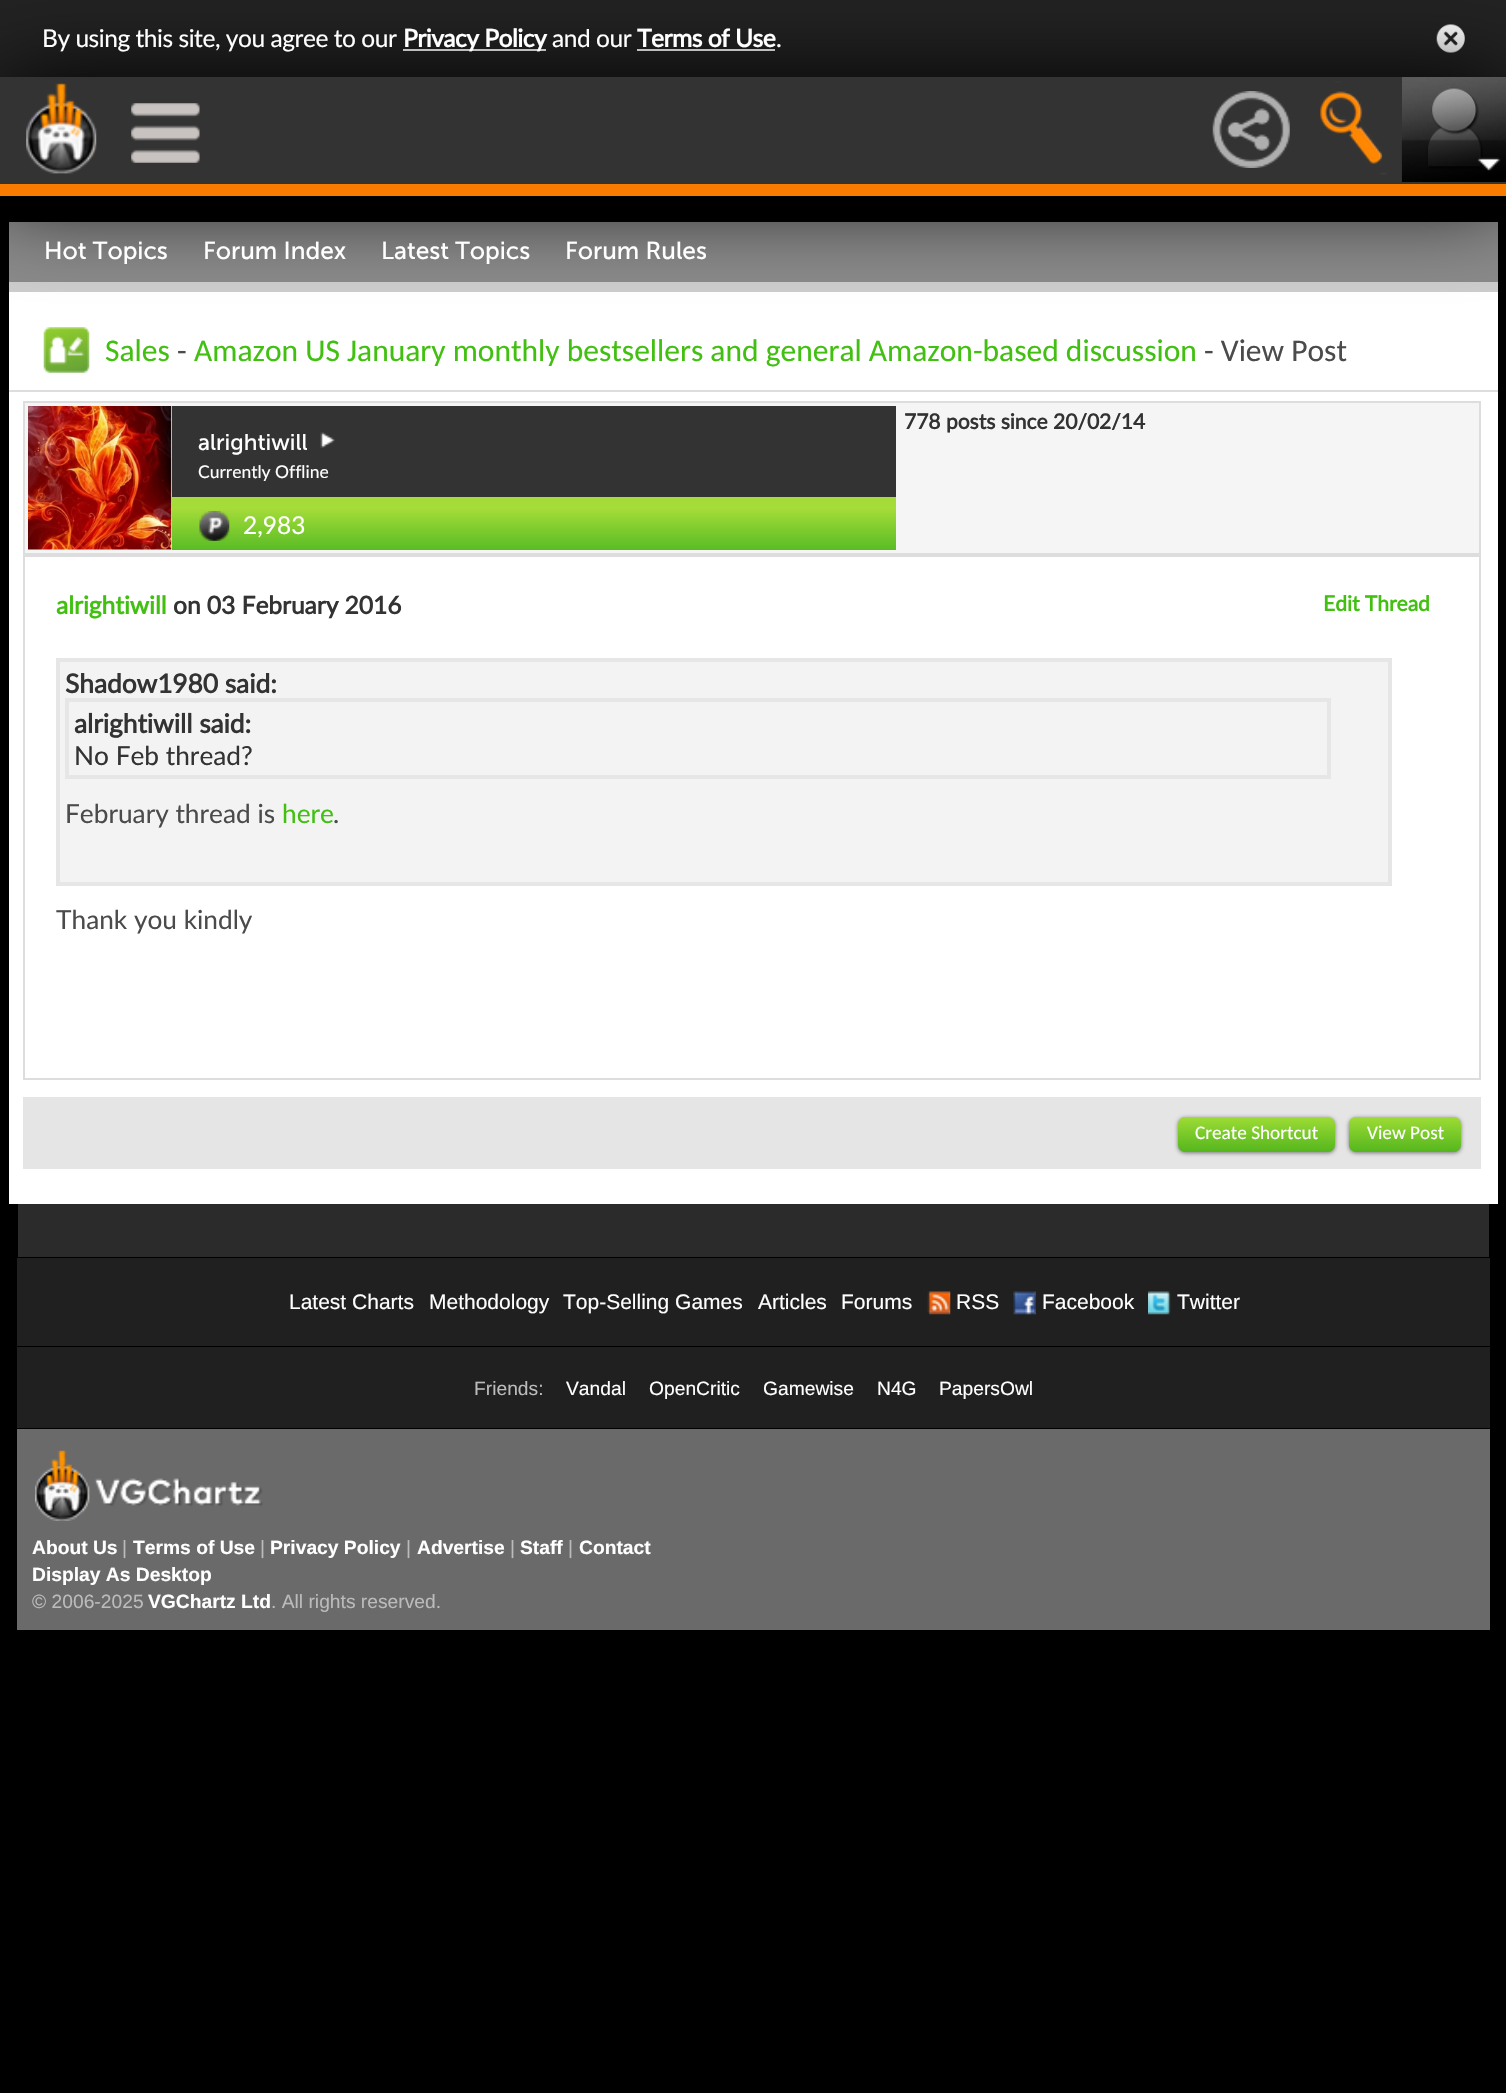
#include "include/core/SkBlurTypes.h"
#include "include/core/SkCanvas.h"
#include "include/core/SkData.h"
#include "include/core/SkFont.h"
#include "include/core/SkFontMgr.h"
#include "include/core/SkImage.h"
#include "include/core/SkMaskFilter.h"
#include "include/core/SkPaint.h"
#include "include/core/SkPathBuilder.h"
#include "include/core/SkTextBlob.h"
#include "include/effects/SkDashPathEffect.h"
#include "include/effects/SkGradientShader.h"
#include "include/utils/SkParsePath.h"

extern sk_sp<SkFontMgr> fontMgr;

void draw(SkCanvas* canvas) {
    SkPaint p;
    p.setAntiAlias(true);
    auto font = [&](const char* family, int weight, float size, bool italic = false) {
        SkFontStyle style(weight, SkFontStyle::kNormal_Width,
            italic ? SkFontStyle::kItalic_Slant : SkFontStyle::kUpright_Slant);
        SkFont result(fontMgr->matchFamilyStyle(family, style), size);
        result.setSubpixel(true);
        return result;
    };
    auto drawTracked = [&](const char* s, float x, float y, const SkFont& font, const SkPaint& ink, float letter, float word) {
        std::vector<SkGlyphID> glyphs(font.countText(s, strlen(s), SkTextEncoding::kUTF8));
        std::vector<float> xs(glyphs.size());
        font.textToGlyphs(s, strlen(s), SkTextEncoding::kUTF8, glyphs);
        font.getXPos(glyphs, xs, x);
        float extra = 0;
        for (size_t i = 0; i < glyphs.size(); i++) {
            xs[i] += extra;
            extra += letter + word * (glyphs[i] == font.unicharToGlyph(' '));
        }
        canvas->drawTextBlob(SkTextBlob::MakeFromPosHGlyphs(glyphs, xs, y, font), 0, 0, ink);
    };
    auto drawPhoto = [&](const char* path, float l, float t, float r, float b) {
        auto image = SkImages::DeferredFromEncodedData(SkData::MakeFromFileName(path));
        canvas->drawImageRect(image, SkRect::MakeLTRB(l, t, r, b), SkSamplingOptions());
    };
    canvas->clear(0xFF000000);
    {
        const struct { float l, t, r, b; SkColor color; } items[] = {
            {0, 0, 1506, 77, 0xFF222222},
            {403, 49, 546, 51, 0xFFFFFFFF},
            {637, 49, 775, 51, 0xFFFFFFFF},
        };
        for (auto [l, t, r, b, color] : items) {
            p.setColor(color);
            canvas->drawRect(SkRect::MakeLTRB(l, t, r, b), p);
        }
    }
    drawPhoto("media/7.png", 1436, 24, 1465, 53);
    {
        const struct { float l, t, r, b; SkColor color; } items[] = {
            {9, 292, 1498, 1204, 0xFFFFFFFF},
            {9, 222, 1498, 282, 0xFF8A8A8A},
            {9, 282, 1498, 292, 0xFFCDCDCD},
        };
        for (auto [l, t, r, b, color] : items) {
            p.setColor(color);
            canvas->drawRect(SkRect::MakeLTRB(l, t, r, b), p);
        }
    }
    drawPhoto("media/8.png", 43, 327, 90, 373);
    p.setColor(0xFF000000);
    p.setMaskFilter(SkMaskFilter::MakeBlur(kNormal_SkBlurStyle, 44));
    canvas->drawRect(SkRect::MakeLTRB(0, 79, 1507, 198), p);
    p.setMaskFilter(nullptr);
    p.setColor(0xFF333333);
    canvas->drawRect(SkRect::MakeLTRB(0, 77, 1506, 184), p);
    drawPhoto("media/1.png", 26, 83, 97, 174);
    drawPhoto("media/2.png", 131, 103, 200, 163);
    drawPhoto("media/3.png", 1212, 91, 1290, 168);
    drawPhoto("media/4.png", 1320, 81, 1387, 175);
    drawPhoto("media/5.png", 1402, 77, 1506, 182);
    drawPhoto("media/6.png", 1401, 139, 1506, 182);
    p.setColor(0xFFF97B00);
    canvas->drawRect(SkRect::MakeLTRB(0, 184, 1506, 196), p);
    auto font1 = font("Lato", 400, 24.5f);
    p.setColor(0xFFFFFFFF);
    drawTracked("By using this site, you agree to our", 42, 47, font1, p, -0.45f, 0);
    auto font2 = font("Lato", 700, 24.5f);
    drawTracked("Privacy Policy", 403, 47, font2, p, -0.45f, 0);
    drawTracked("and our", 552, 47, font1, p, -0.45f, 0);
    drawTracked("Terms of Use", 637, 47, font2, p, -0.45f, 0);
    drawTracked(".", 776, 47, font1, p, -0.45f, 0);
    auto font3 = font("Museo Sans", 400, 24.5f);
    {
        const struct { const char* s; float x, y; } items[] = {
            {"Hot Topics", 44, 259},
            {"Forum Index", 203, 259},
            {"Latest Topics", 381, 259},
            {"Forum Rules", 565, 259},
        };
        for (auto [s, x, y] : items) {
            canvas->drawString(s, x, y, font3, p);
        }
    }
    auto font4 = font("Carlito", 400, 31.5f);
    p.setColor(0xFF42C011);
    canvas->drawString("Sales", 105, 361, font4, p);
    p.setColor(0xFF4B4B4B);
    canvas->drawString("-", 177, 361, font4, p);
    p.setColor(0xFF42C011);
    canvas->drawString("Amazon US January monthly bestsellers and general Amazon-based discussion", 194, 361, font4, p);
    p.setColor(0xFF4B4B4B);
    canvas->drawString("- View Post", 1204, 361, font4, p);
    p.setColor(0xFFDDDDDD);
    canvas->drawRect(SkRect::MakeLTRB(9, 390, 1498, 392), p);
    p.setColor(0xFFF5F5F5);
    canvas->drawRect(SkRect::MakeLTRB(24, 402, 1480, 554), p);
    p.setStyle(SkPaint::kStroke_Style);
    p.setStrokeWidth(2);
    p.setColor(0xFFDDDDDD);
    canvas->drawRect(SkRect::MakeLTRB(24, 402, 1480, 554), p);
    drawPhoto("media/9.png", 28, 406, 172, 550);
    auto font5 = font("Lato", 700, 21);
    p.setStyle(SkPaint::kFill_Style);
    p.setColor(0xFF333333);
    canvas->drawString("778 posts since 20/02/14", 904, 429, font5, p);
    {
        const SkColor colors[] = {0xFFA5DC39, 0xFFA5DC39, 0xFF59BC25};
        const float stops[] = {0, 0.71f, 1};
        const SkPoint ends[] = {{172, 406}, {172, 550}};
        p.setShader(SkGradientShader::MakeLinear(ends, colors, stops, 3, SkTileMode::kClamp));
        p.setAlpha(255);
    }
    canvas->drawRect(SkRect::MakeLTRB(172, 497, 896, 550), p);
    p.setShader(nullptr);
    p.setColor(0xFF333333);
    canvas->drawRect(SkRect::MakeLTRB(172, 406, 896, 497), p);
    drawPhoto("media/10.png", 320, 432, 335, 448);
    auto font6 = font("Museo Sans", 400, 22.75f);
    p.setColor(0xFFFFFFFF);
    canvas->drawString("alrightiwill", 198, 450, font6, p);
    auto font7 = font("Lato", 400, 17.5f);
    canvas->drawString("Currently Offline", 198, 478, font7, p);
    drawPhoto("media/11.png", 199, 511, 230, 541);
    canvas->drawString("2,983", 243, 534, font1, p);
    p.setStyle(SkPaint::kStroke_Style);
    p.setColor(0xFFDDDDDD);
    canvas->drawRect(SkRect::MakeLTRB(24, 556, 1480, 1079), p);
    p.setStyle(SkPaint::kFill_Style);
    p.setColor(0xFF42C011);
    canvas->drawString("alrightiwill", 56, 614, font2, p);
    p.setColor(0xFF333333);
    canvas->drawString("on 03 February 2016", 173, 614, font2, p);
    p.setColor(0xFF42C011);
    canvas->drawString("Edit Thread", 1323, 611, font5, p);
    {
        const struct { float l, t, r, b; SkColor color; } items[] = {
            {60, 662, 1388, 882, 0xFFF3F3F3},
            {56, 658, 1391, 662, 0xFFE6E6E6},
            {1388, 658, 1392, 886, 0xFFE6E6E6},
            {56, 882, 1391, 886, 0xFFE6E6E6},
            {56, 658, 60, 886, 0xFFE6E6E6},
        };
        for (auto [l, t, r, b, color] : items) {
            p.setColor(color);
            canvas->drawRect(SkRect::MakeLTRB(l, t, r, b), p);
        }
    }
    auto font8 = font("Lato", 700, 26.25f);
    p.setColor(0xFF333333);
    canvas->drawString("Shadow1980 said:", 65, 693, font8, p);
    {
        const struct { float l, t, r, b; SkColor color; } items[] = {
            {65, 698, 1330, 702, 0xFFE6E6E6},
            {1327, 698, 1331, 779, 0xFFE6E6E6},
            {65, 775, 1330, 779, 0xFFE6E6E6},
            {65, 698, 69, 779, 0xFFE6E6E6},
        };
        for (auto [l, t, r, b, color] : items) {
            p.setColor(color);
            canvas->drawRect(SkRect::MakeLTRB(l, t, r, b), p);
        }
    }
    p.setColor(0xFF333333);
    canvas->drawString("alrightiwill said:", 74, 733, font8, p);
    auto font9 = font("Lato", 400, 26.25f);
    canvas->drawString("No Feb thread?", 74, 765, font9, p);
    p.setColor(0xFF4B4B4B);
    canvas->drawString("February thread is", 65, 823, font9, p);
    p.setColor(0xFF42C011);
    canvas->drawString("here", 282, 823, font9, p);
    p.setColor(0xFF4B4B4B);
    canvas->drawString(".", 333, 823, font9, p);
    canvas->drawString("Thank you kindly", 56, 929, font9, p);
    p.setColor(0xFFE5E5E5);
    canvas->drawRect(SkRect::MakeLTRB(23, 1097, 1481, 1169), p);
    p.setColor(0xFF767676);
    p.setMaskFilter(SkMaskFilter::MakeBlur(kNormal_SkBlurStyle, 2));
    canvas->drawRoundRect(SkRect::MakeLTRB(1178, 1118, 1335, 1153), 7, 7, p);
    p.setMaskFilter(nullptr);
    {
        const SkColor colors[] = {0xFF9EDC36, 0xFF54B61D};
        const float stops[] = {0, 1};
        const SkPoint ends[] = {{1178, 1117}, {1178, 1152}};
        p.setShader(SkGradientShader::MakeLinear(ends, colors, stops, 2, SkTileMode::kClamp));
        p.setAlpha(255);
    }
    canvas->drawRoundRect(SkRect::MakeLTRB(1178, 1117, 1335, 1152), 7, 7, p);
    auto font10 = font("Carlito", 400, 19.25f);
    p.setShader(nullptr);
    p.setColor(0xFFFFFFFF);
    canvas->drawString("Create Shortcut", 1195, 1139, font10, p);
    p.setColor(0xFF767676);
    p.setMaskFilter(SkMaskFilter::MakeBlur(kNormal_SkBlurStyle, 2));
    canvas->drawRoundRect(SkRect::MakeLTRB(1349, 1118, 1461, 1153), 7, 7, p);
    p.setMaskFilter(nullptr);
    {
        const SkColor colors[] = {0xFF9EDC36, 0xFF54B61D};
        const float stops[] = {0, 1};
        const SkPoint ends[] = {{1349, 1117}, {1349, 1152}};
        p.setShader(SkGradientShader::MakeLinear(ends, colors, stops, 2, SkTileMode::kClamp));
        p.setAlpha(255);
    }
    canvas->drawRoundRect(SkRect::MakeLTRB(1349, 1117, 1461, 1152), 7, 7, p);
    p.setShader(nullptr);
    p.setColor(0xFFFFFFFF);
    canvas->drawString("View Post", 1367, 1139, font10, p);
    p.setColor(0xFF2B2B2B);
    canvas->drawRect(SkRect::MakeLTRB(18, 1204, 1489, 1257), p);
    p.setColor(0xFF202020);
    canvas->drawRect(SkRect::MakeLTRB(17, 1258, 1490, 1346), p);
    auto font11 = font("Liberation Sans", 400, 21);
    p.setColor(0xFFFFFFFF);
    {
        const struct { const char* s; float x, y; } items[] = {
            {"Latest Charts", 289, 1309},
            {"Methodology", 429, 1309},
            {"Top-Selling Games", 563, 1309},
            {"Articles", 758, 1309},
            {"Forums", 841, 1309},
        };
        for (auto [s, x, y] : items) {
            canvas->drawString(s, x, y, font11, p);
        }
    }
    drawPhoto("media/12.png", 927, 1291, 951, 1315);
    canvas->drawString("RSS", 956, 1309, font11, p);
    drawPhoto("media/13.png", 1013, 1291, 1036, 1315);
    canvas->drawString("Facebook", 1042, 1309, font11, p);
    drawPhoto("media/14.png", 1148, 1291, 1171, 1315);
    canvas->drawString("Twitter", 1177, 1309, font11, p);
    p.setColor(0xFF202020);
    canvas->drawRect(SkRect::MakeLTRB(17, 1347, 1490, 1428), p);
    auto font12 = font("Liberation Sans", 400, 19.25f);
    p.setColor(0xFFBBBBBB);
    canvas->drawString("Friends:", 474, 1395, font12, p);
    p.setColor(0xFFFFFFFF);
    {
        const struct { const char* s; float x, y; } items[] = {
            {"Vandal", 566, 1395},
            {"OpenCritic", 649, 1395},
            {"Gamewise", 763, 1395},
            {"N4G", 877, 1395},
            {"PapersOwl", 939, 1395},
        };
        for (auto [s, x, y] : items) {
            canvas->drawString(s, x, y, font12, p);
        }
    }
    p.setColor(0xFF6A6A6A);
    canvas->drawRect(SkRect::MakeLTRB(17, 1429, 1490, 1630), p);
    drawPhoto("media/15.png", 35, 1450, 263, 1521);
    auto font13 = font("Liberation Sans", 700, 19.25f);
    p.setColor(0xFFFFFFFF);
    canvas->drawString("About Us", 32, 1554, font13, p);
    p.setColor(0xFFBBBBBB);
    canvas->drawString("|", 122, 1554, font12, p);
    p.setColor(0xFFFFFFFF);
    canvas->drawString("Terms of Use", 133, 1554, font13, p);
    p.setColor(0xFFBBBBBB);
    canvas->drawString("|", 260, 1554, font12, p);
    p.setColor(0xFFFFFFFF);
    canvas->drawString("Privacy Policy", 270, 1554, font13, p);
    p.setColor(0xFFBBBBBB);
    canvas->drawString("|", 406, 1554, font12, p);
    p.setColor(0xFFFFFFFF);
    canvas->drawString("Advertise", 417, 1554, font13, p);
    p.setColor(0xFFBBBBBB);
    canvas->drawString("|", 510, 1554, font12, p);
    p.setColor(0xFFFFFFFF);
    canvas->drawString("Staff", 520, 1554, font13, p);
    p.setColor(0xFFBBBBBB);
    canvas->drawString("|", 568, 1554, font12, p);
    p.setColor(0xFFFFFFFF);
    canvas->drawString("Contact", 579, 1554, font13, p);
    canvas->drawString("Display As Desktop", 32, 1581, font13, p);
    p.setColor(0xFFBBBBBB);
    canvas->drawString("© 2006-2025", 32, 1608, font12, p);
    p.setColor(0xFFFFFFFF);
    canvas->drawString("VGChartz Ltd", 148, 1608, font13, p);
    p.setColor(0xFFBBBBBB);
    canvas->drawString(". All rights reserved.", 271, 1608, font12, p);
}
